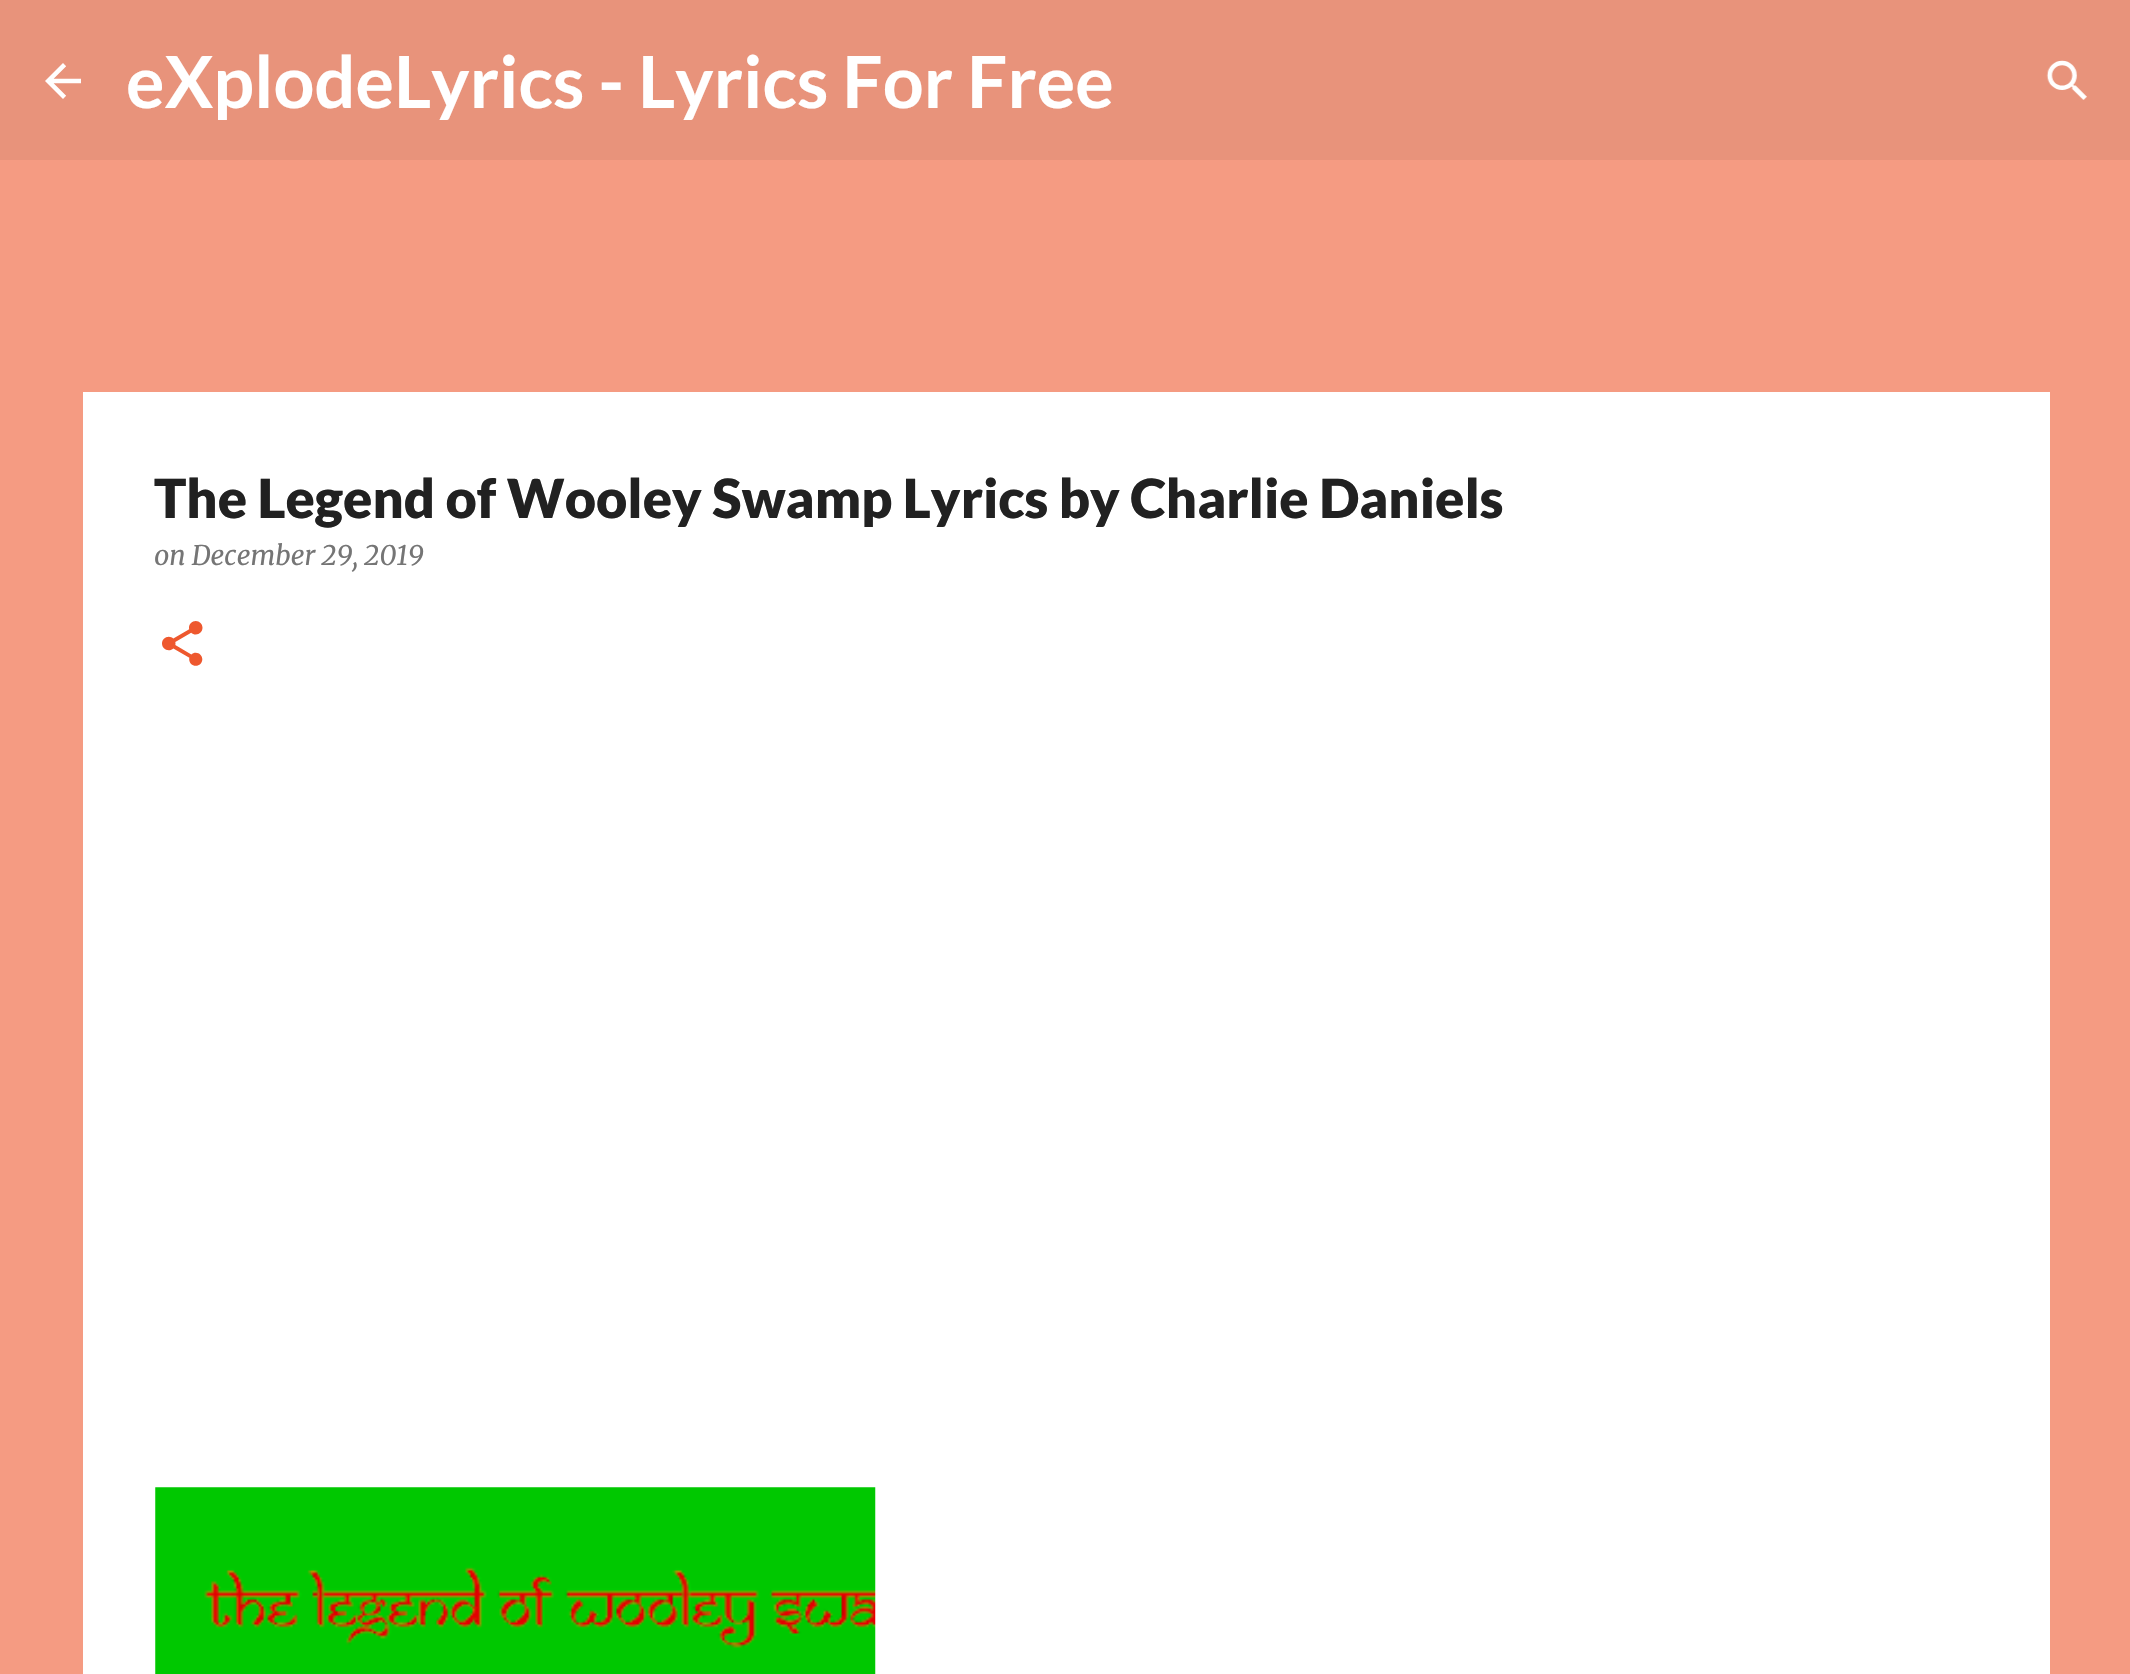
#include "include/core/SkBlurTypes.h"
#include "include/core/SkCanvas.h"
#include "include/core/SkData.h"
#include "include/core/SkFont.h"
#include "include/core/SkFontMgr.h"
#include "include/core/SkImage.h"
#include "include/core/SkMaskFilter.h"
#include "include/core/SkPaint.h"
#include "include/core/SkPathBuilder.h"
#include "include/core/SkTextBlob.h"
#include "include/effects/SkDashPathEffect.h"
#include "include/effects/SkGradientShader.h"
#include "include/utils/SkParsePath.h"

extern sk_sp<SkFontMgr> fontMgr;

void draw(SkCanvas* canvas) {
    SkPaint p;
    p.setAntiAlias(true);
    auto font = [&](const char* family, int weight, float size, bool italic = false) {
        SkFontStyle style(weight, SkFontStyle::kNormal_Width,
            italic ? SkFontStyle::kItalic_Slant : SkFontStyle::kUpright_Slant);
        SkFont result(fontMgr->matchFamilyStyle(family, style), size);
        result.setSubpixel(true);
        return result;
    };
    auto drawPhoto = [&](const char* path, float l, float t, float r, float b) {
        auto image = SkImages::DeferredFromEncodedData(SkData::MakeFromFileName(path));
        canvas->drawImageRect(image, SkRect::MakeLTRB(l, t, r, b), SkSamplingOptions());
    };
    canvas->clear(0xFFF59B82);
    p.setColor(0xFFE8937B);
    canvas->drawRect(SkRect::MakeLTRB(0, 0, 2130, 160), p);
    drawPhoto("media/1.png", 45, 63, 81, 99);
    auto font1 = font("Lato", 700, 72);
    p.setColor(0xFFFFFFFF);
    canvas->drawString("eXplodeLyrics - Lyrics For Free", 126, 108, font1, p);
    drawPhoto("media/2.png", 2046, 60, 2087, 100);
    canvas->drawRect(SkRect::MakeLTRB(83, 392, 2050, 1674), p);
    auto font2 = font("Lato", 900, 54);
    p.setColor(0xFF212121);
    canvas->drawString("The Legend of Wooley Swamp Lyrics by Charlie Daniels", 154, 518, font2, p);
    auto font3 = font("Merriweather", 400, 27, true);
    p.setColor(0xFF757575);
    canvas->drawString("on December 29, 2019", 154, 565, font3, p);
    drawPhoto("media/3.png", 162, 621, 203, 666);
    drawPhoto("media/4.png", 155, 1487, 876, 1674);
}
